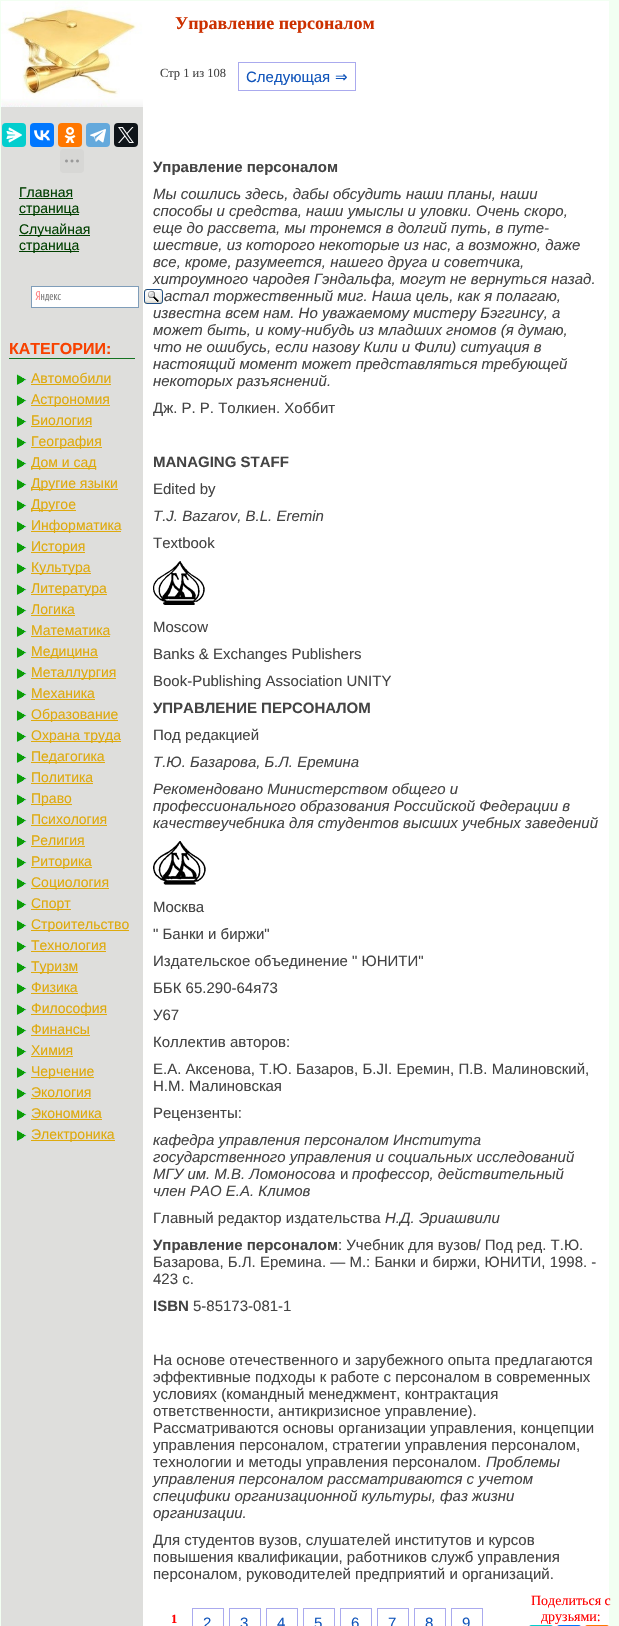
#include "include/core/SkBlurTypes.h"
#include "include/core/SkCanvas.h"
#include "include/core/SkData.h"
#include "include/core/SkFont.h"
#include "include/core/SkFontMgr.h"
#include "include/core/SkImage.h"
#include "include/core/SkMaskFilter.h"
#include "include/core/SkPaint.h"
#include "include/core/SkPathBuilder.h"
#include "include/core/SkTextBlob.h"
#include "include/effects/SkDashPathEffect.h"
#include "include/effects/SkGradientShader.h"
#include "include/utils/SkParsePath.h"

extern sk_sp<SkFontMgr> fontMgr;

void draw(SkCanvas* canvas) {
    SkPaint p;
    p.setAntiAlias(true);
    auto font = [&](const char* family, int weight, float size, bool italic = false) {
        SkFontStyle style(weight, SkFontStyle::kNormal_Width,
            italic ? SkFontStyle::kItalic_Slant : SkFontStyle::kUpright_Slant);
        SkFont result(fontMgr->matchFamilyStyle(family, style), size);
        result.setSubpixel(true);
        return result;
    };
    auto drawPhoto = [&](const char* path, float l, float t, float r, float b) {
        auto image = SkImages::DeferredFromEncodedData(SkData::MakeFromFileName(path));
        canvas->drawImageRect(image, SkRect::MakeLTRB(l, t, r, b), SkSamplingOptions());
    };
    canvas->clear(0xFFF2FFF2);
    p.setColor(0xFFDEDEDC);
    canvas->drawRect(SkRect::MakeLTRB(1, 107, 143, 1626), p);
    drawPhoto("media/1.png", 1, 1, 143, 107);
    p.setColor(0xFF03CECE);
    canvas->drawRoundRect(SkRect::MakeLTRB(2, 123, 26, 147), 4, 4, p);
    drawPhoto("media/2.png", 6, 127, 22, 143);
    p.setColor(0xFF0077FF);
    canvas->drawRoundRect(SkRect::MakeLTRB(30, 123, 54, 147), 4, 4, p);
    drawPhoto("media/3.png", 34, 130, 50, 141);
    p.setColor(0xFFFF7700);
    canvas->drawRoundRect(SkRect::MakeLTRB(58, 123, 82, 147), 4, 4, p);
    drawPhoto("media/4.png", 64, 127, 76, 143);
    p.setColor(0xFF64A9DC);
    canvas->drawRoundRect(SkRect::MakeLTRB(86, 123, 110, 147), 4, 4, p);
    drawPhoto("media/5.png", 90, 129, 106, 143);
    p.setColor(0xFF0F1419);
    canvas->drawRoundRect(SkRect::MakeLTRB(114, 123, 138, 147), 4, 4, p);
    drawPhoto("media/6.png", 118, 127, 134, 143);
    p.setColor(0xFFD7D7D5);
    canvas->drawRoundRect(SkRect::MakeLTRB(60, 149, 84, 173), 4, 4, p);
    drawPhoto("media/7.png", 65, 159, 79, 163);
    auto font1 = font("Liberation Sans", 400, 14);
    p.setColor(0xFF004000);
    canvas->drawString("Главная", 19, 197, font1, p);
    canvas->drawRect(SkRect::MakeLTRB(19, 198, 73, 199), p);
    canvas->drawRect(SkRect::MakeLTRB(19, 214, 79, 215), p);
    canvas->drawString("страница", 19, 213, font1, p);
    canvas->drawRect(SkRect::MakeLTRB(19, 235, 90, 236), p);
    canvas->drawString("Случайная", 19, 234, font1, p);
    canvas->drawRect(SkRect::MakeLTRB(19, 251, 79, 252), p);
    canvas->drawString("страница", 19, 250, font1, p);
    p.setColor(0xFFFFFFFF);
    canvas->drawRect(SkRect::MakeLTRB(32, 287, 138, 307), p);
    drawPhoto("media/8.png", 35, 291, 61, 302);
    p.setStyle(SkPaint::kStroke_Style);
    p.setStrokeWidth(1);
    p.setColor(0xFF7F9DB9);
    canvas->drawRect(SkRect::MakeLTRB(31.5f, 286.5f, 138.5f, 307.5f), p);
    p.setStyle(SkPaint::kFill_Style);
    p.setColor(0xFFFFFFFF);
    canvas->drawRect(SkRect::MakeLTRB(143, 1, 609, 1626), p);
    drawPhoto("media/9.png", 144, 289, 163, 304);
    p.setColor(0xFF147220);
    canvas->drawRect(SkRect::MakeLTRB(9, 358, 135, 359), p);
    auto font2 = font("Liberation Sans", 700, 16);
    p.setColor(0xFFF84200);
    canvas->drawString("КАТЕГОРИИ:", 9, 354, font2, p);
    drawPhoto("media/10.png", 16, 374, 27, 385);
    p.setColor(0xFFDEAA0E);
    canvas->drawString("Автомобили", 31, 383, font1, p);
    canvas->drawRect(SkRect::MakeLTRB(31, 384, 111, 385), p);
    drawPhoto("media/10.png", 16, 395, 27, 406);
    canvas->drawRect(SkRect::MakeLTRB(31, 405, 110, 406), p);
    canvas->drawString("Астрономия", 31, 404, font1, p);
    drawPhoto("media/10.png", 16, 416, 27, 427);
    canvas->drawString("Биология", 31, 425, font1, p);
    canvas->drawRect(SkRect::MakeLTRB(31, 426, 92, 427), p);
    drawPhoto("media/10.png", 16, 437, 27, 448);
    canvas->drawRect(SkRect::MakeLTRB(31, 447, 102, 448), p);
    canvas->drawString("География", 31, 446, font1, p);
    drawPhoto("media/10.png", 16, 458, 27, 469);
    canvas->drawRect(SkRect::MakeLTRB(31, 468, 96, 469), p);
    canvas->drawString("Дом и сад", 31, 467, font1, p);
    drawPhoto("media/10.png", 16, 479, 27, 490);
    canvas->drawRect(SkRect::MakeLTRB(31, 489, 118, 490), p);
    canvas->drawString("Другие языки", 31, 488, font1, p);
    drawPhoto("media/10.png", 16, 500, 27, 511);
    canvas->drawRect(SkRect::MakeLTRB(31, 510, 76, 511), p);
    canvas->drawString("Другое", 31, 509, font1, p);
    drawPhoto("media/10.png", 16, 521, 27, 532);
    canvas->drawRect(SkRect::MakeLTRB(31, 531, 121, 532), p);
    canvas->drawString("Информатика", 31, 530, font1, p);
    drawPhoto("media/10.png", 16, 542, 27, 553);
    canvas->drawRect(SkRect::MakeLTRB(31, 552, 85, 553), p);
    canvas->drawString("История", 31, 551, font1, p);
    drawPhoto("media/10.png", 16, 563, 27, 574);
    canvas->drawRect(SkRect::MakeLTRB(31, 573, 91, 574), p);
    canvas->drawString("Культура", 31, 572, font1, p);
    drawPhoto("media/10.png", 16, 584, 27, 595);
    canvas->drawRect(SkRect::MakeLTRB(31, 594, 107, 595), p);
    canvas->drawString("Литература", 31, 593, font1, p);
    drawPhoto("media/10.png", 16, 605, 27, 616);
    canvas->drawString("Логика", 31, 614, font1, p);
    canvas->drawRect(SkRect::MakeLTRB(31, 615, 75, 616), p);
    drawPhoto("media/10.png", 16, 626, 27, 637);
    canvas->drawString("Математика", 31, 635, font1, p);
    canvas->drawRect(SkRect::MakeLTRB(31, 636, 110, 637), p);
    drawPhoto("media/10.png", 16, 647, 27, 658);
    canvas->drawRect(SkRect::MakeLTRB(31, 657, 98, 658), p);
    canvas->drawString("Медицина", 31, 656, font1, p);
    drawPhoto("media/10.png", 16, 668, 27, 679);
    canvas->drawRect(SkRect::MakeLTRB(31, 678, 116, 679), p);
    canvas->drawString("Металлургия", 31, 677, font1, p);
    drawPhoto("media/10.png", 16, 689, 27, 700);
    canvas->drawString("Механика", 31, 698, font1, p);
    canvas->drawRect(SkRect::MakeLTRB(31, 699, 95, 700), p);
    drawPhoto("media/10.png", 16, 710, 27, 721);
    canvas->drawRect(SkRect::MakeLTRB(31, 720, 118, 721), p);
    canvas->drawString("Образование", 31, 719, font1, p);
    drawPhoto("media/10.png", 16, 731, 27, 742);
    canvas->drawRect(SkRect::MakeLTRB(31, 741, 121, 742), p);
    canvas->drawString("Охрана труда", 31, 740, font1, p);
    drawPhoto("media/10.png", 16, 752, 27, 763);
    canvas->drawRect(SkRect::MakeLTRB(31, 762, 105, 763), p);
    canvas->drawString("Педагогика", 31, 761, font1, p);
    drawPhoto("media/10.png", 16, 773, 27, 784);
    canvas->drawString("Политика", 31, 782, font1, p);
    canvas->drawRect(SkRect::MakeLTRB(31, 783, 93, 784), p);
    drawPhoto("media/10.png", 16, 794, 27, 805);
    canvas->drawRect(SkRect::MakeLTRB(31, 804, 72, 805), p);
    canvas->drawString("Право", 31, 803, font1, p);
    drawPhoto("media/10.png", 16, 815, 27, 826);
    canvas->drawString("Психология", 31, 824, font1, p);
    canvas->drawRect(SkRect::MakeLTRB(31, 825, 107, 826), p);
    drawPhoto("media/10.png", 16, 836, 27, 847);
    canvas->drawString("Религия", 31, 845, font1, p);
    canvas->drawRect(SkRect::MakeLTRB(31, 846, 85, 847), p);
    drawPhoto("media/10.png", 16, 857, 27, 868);
    canvas->drawRect(SkRect::MakeLTRB(31, 867, 92, 868), p);
    canvas->drawString("Риторика", 31, 866, font1, p);
    drawPhoto("media/10.png", 16, 878, 27, 889);
    canvas->drawRect(SkRect::MakeLTRB(31, 888, 109, 889), p);
    canvas->drawString("Социология", 31, 887, font1, p);
    drawPhoto("media/10.png", 16, 899, 27, 910);
    canvas->drawRect(SkRect::MakeLTRB(31, 909, 71, 910), p);
    canvas->drawString("Спорт", 31, 908, font1, p);
    drawPhoto("media/10.png", 16, 920, 27, 931);
    canvas->drawRect(SkRect::MakeLTRB(31, 930, 129, 931), p);
    canvas->drawString("Строительство", 31, 929, font1, p);
    drawPhoto("media/10.png", 16, 941, 27, 952);
    canvas->drawString("Технология", 31, 950, font1, p);
    canvas->drawRect(SkRect::MakeLTRB(31, 951, 106, 952), p);
    drawPhoto("media/10.png", 16, 962, 27, 973);
    canvas->drawRect(SkRect::MakeLTRB(31, 972, 78, 973), p);
    canvas->drawString("Туризм", 31, 971, font1, p);
    drawPhoto("media/10.png", 16, 983, 27, 994);
    canvas->drawString("Физика", 31, 992, font1, p);
    canvas->drawRect(SkRect::MakeLTRB(31, 993, 78, 994), p);
    drawPhoto("media/10.png", 16, 1004, 27, 1015);
    canvas->drawRect(SkRect::MakeLTRB(31, 1014, 107, 1015), p);
    canvas->drawString("Философия", 31, 1013, font1, p);
    drawPhoto("media/10.png", 16, 1025, 27, 1036);
    canvas->drawString("Финансы", 31, 1034, font1, p);
    canvas->drawRect(SkRect::MakeLTRB(31, 1035, 90, 1036), p);
    drawPhoto("media/10.png", 16, 1046, 27, 1057);
    canvas->drawString("Химия", 31, 1055, font1, p);
    canvas->drawRect(SkRect::MakeLTRB(31, 1056, 73, 1057), p);
    drawPhoto("media/10.png", 16, 1067, 27, 1078);
    canvas->drawRect(SkRect::MakeLTRB(31, 1077, 94, 1078), p);
    canvas->drawString("Черчение", 31, 1076, font1, p);
    drawPhoto("media/10.png", 16, 1088, 27, 1099);
    canvas->drawString("Экология", 31, 1097, font1, p);
    canvas->drawRect(SkRect::MakeLTRB(31, 1098, 91, 1099), p);
    drawPhoto("media/10.png", 16, 1109, 27, 1120);
    canvas->drawString("Экономика", 31, 1118, font1, p);
    canvas->drawRect(SkRect::MakeLTRB(31, 1119, 102, 1120), p);
    drawPhoto("media/10.png", 16, 1130, 27, 1141);
    canvas->drawRect(SkRect::MakeLTRB(31, 1140, 115, 1141), p);
    canvas->drawString("Электроника", 31, 1139, font1, p);
    auto font3 = font("Liberation Serif", 700, 18);
    p.setColor(0xFFCC3000);
    canvas->drawString("Управление персоналом", 175, 29, font3, p);
    auto font4 = font("Liberation Serif", 400, 12.5f);
    p.setColor(0xFF444444);
    canvas->drawString("Стр 1 из 108", 160, 77, font4, p);
    p.setStyle(SkPaint::kStroke_Style);
    p.setColor(0xFFAAAAEE);
    canvas->drawRect(SkRect::MakeLTRB(238.5f, 62.5f, 355.5f, 90.5f), p);
    auto font5 = font("Liberation Sans", 400, 15);
    p.setStyle(SkPaint::kFill_Style);
    p.setColor(0xFF1155BB);
    canvas->drawString("Следующая", 246, 82, font5, p);
    auto font6 = font("DejaVu Sans", 400, 15);
    canvas->drawString("⇒", 335, 82, font6, p);
    auto font7 = font("Liberation Sans", 700, 15);
    p.setColor(0xFF444444);
    canvas->drawString("Управление персоналом", 153, 172, font7, p);
    auto font8 = font("Liberation Sans", 400, 15, true);
    {
        const struct { const char* s; float x, y; } items[] = {
            {"Мы сошлись здесь, дабы обсудить наши планы, наши", 153, 199},
            {"способы и средства, наши умыслы и уловки. Очень скоро,", 153, 216},
            {"еще до рассвета, мы тронемся в долгий путь, в путе-", 153, 233},
            {"шествие, из которого некоторые из нас, а возможно, даже", 153, 250},
            {"все, кроме, разумеется, нашего друга и советчика,", 153, 267},
            {"хитроумного чародея Гэндальфа, могут не вернуться назад.", 153, 284},
            {"астал торжественный миг. Наша цель, как я полагаю,", 164, 301},
            {"известна всем нам. Но уважаемому мистеру Бэггинсу, а", 153, 318},
            {"может быть, и кому-нибудь из младших гномов (я думаю,", 153, 335},
            {"что не ошибусь, если назову Кили и Фили) ситуация в", 153, 352},
            {"настоящий момент может представляться требующей", 153, 369},
            {"некоторых разъяснений.", 153, 386},
        };
        for (auto [s, x, y] : items) {
            canvas->drawString(s, x, y, font8, p);
        }
    }
    canvas->drawString("Дж. Р. Р. Толкиен. Хоббит", 153, 413, font5, p);
    canvas->drawString("MANAGING STAFF", 153, 467, font7, p);
    canvas->drawString("Edited by", 153, 494, font5, p);
    canvas->drawString("T.J. Bazarov, B.L. Eremin", 153, 521, font8, p);
    canvas->drawString("Textbook", 153, 548, font5, p);
    drawPhoto("media/11.png", 153, 561, 205, 605);
    {
        const struct { const char* s; float x, y; } items[] = {
            {"Moscow", 153, 632},
            {"Banks & Exchanges Publishers", 153, 659},
            {"Book-Publishing Association UNITY", 153, 686},
        };
        for (auto [s, x, y] : items) {
            canvas->drawString(s, x, y, font5, p);
        }
    }
    canvas->drawString("УПРАВЛЕНИЕ ПЕРСОНАЛОМ", 153, 713, font7, p);
    canvas->drawString("Под редакцией", 153, 740, font5, p);
    {
        const struct { const char* s; float x, y; } items[] = {
            {"Т.Ю. Базарова, Б.Л. Еремина", 153, 767},
            {"Рекомендовано Министерством общего и", 153, 794},
            {"профессионального образования Российской Федерации в", 153, 811},
            {"качествеучебника для студентов высших учебных заведений", 153, 828},
        };
        for (auto [s, x, y] : items) {
            canvas->drawString(s, x, y, font8, p);
        }
    }
    drawPhoto("media/12.png", 153, 841, 206, 885);
    {
        const struct { const char* s; float x, y; } items[] = {
            {"Москва", 153, 912},
            {"\" Банки и биржи\"", 153, 939},
            {"Издательское объединение \" ЮНИТИ\"", 153, 966},
            {"ББК 65.290-64я73", 153, 993},
            {"У67", 153, 1020},
            {"Коллектив авторов:", 153, 1047},
            {"Е.А. Аксенова, Т.Ю. Базаров, Б.JI. Еремин, П.В. Малиновский,", 153, 1074},
            {"Н.М. Малиновская", 153, 1091},
            {"Рецензенты:", 153, 1118},
        };
        for (auto [s, x, y] : items) {
            canvas->drawString(s, x, y, font5, p);
        }
    }
    {
        const struct { const char* s; float x, y; } items[] = {
            {"кафедра управления персоналом Института", 153, 1145},
            {"государственного управления и социальных исследований", 153, 1162},
            {"МГУ им. М.В. Ломоносова", 153, 1179},
        };
        for (auto [s, x, y] : items) {
            canvas->drawString(s, x, y, font8, p);
        }
    }
    canvas->drawString("и", 340, 1179, font5, p);
    canvas->drawString("профессор, действительный", 352, 1179, font8, p);
    canvas->drawString("член РАО Е.А. Климов", 153, 1196, font8, p);
    canvas->drawString("Главный редактор издательства", 153, 1223, font5, p);
    canvas->drawString("Н.Д. Эриашвили", 385, 1223, font8, p);
    canvas->drawString("Управление персоналом", 153, 1250, font7, p);
    {
        const struct { const char* s; float x, y; } items[] = {
            {": Учебник для вузов/ Под ред. Т.Ю.", 338, 1250},
            {"Базарова, Б.Л. Еремина. — М.: Банки и биржи, ЮНИТИ, 1998. -", 153, 1267},
            {"423 с.", 153, 1284},
        };
        for (auto [s, x, y] : items) {
            canvas->drawString(s, x, y, font5, p);
        }
    }
    canvas->drawString("ISBN", 153, 1311, font7, p);
    {
        const struct { const char* s; float x, y; } items[] = {
            {"5-85173-081-1", 193, 1311},
            {"На основе отечественного и зарубежного опыта предлагаются", 153, 1365},
            {"эффективные подходы к работе с персоналом в современных", 153, 1382},
            {"условиях (командный менеджмент, контрактация", 153, 1399},
            {"ответственности, антикризисное управление).", 153, 1416},
            {"Рассматриваются основы организации управления, концепции", 153, 1433},
            {"управления персоналом, стратегии управления персоналом,", 153, 1450},
            {"технологии и методы управления персоналом.", 153, 1467},
        };
        for (auto [s, x, y] : items) {
            canvas->drawString(s, x, y, font5, p);
        }
    }
    {
        const struct { const char* s; float x, y; } items[] = {
            {"Проблемы", 486, 1467},
            {"управления персоналом рассматриваются с учетом", 153, 1484},
            {"специфики организационной культуры, фаз жизни", 153, 1501},
            {"организации.", 153, 1518},
        };
        for (auto [s, x, y] : items) {
            canvas->drawString(s, x, y, font8, p);
        }
    }
    {
        const struct { const char* s; float x, y; } items[] = {
            {"Для студентов вузов, слушателей институтов и курсов", 153, 1545},
            {"повышения квалификации, работников служб управления", 153, 1562},
            {"персоналом, руководителей предприятий и организаций.", 153, 1579},
        };
        for (auto [s, x, y] : items) {
            canvas->drawString(s, x, y, font5, p);
        }
    }
    auto font9 = font("Liberation Serif", 700, 12.5f);
    p.setColor(0xFFFF0000);
    canvas->drawString("1", 171, 1623, font9, p);
    p.setStyle(SkPaint::kStroke_Style);
    p.setColor(0xFFAAAAEE);
    canvas->drawRect(SkRect::MakeLTRB(192.5f, 1608.5f, 223.5f, 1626.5f), p);
    p.setStyle(SkPaint::kFill_Style);
    p.setColor(0xFF1155BB);
    canvas->drawString("2", 203, 1628, font5, p);
    p.setStyle(SkPaint::kStroke_Style);
    p.setColor(0xFFAAAAEE);
    canvas->drawRect(SkRect::MakeLTRB(229.5f, 1608.5f, 260.5f, 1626.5f), p);
    p.setStyle(SkPaint::kFill_Style);
    p.setColor(0xFF1155BB);
    canvas->drawString("3", 240, 1628, font5, p);
    p.setStyle(SkPaint::kStroke_Style);
    p.setColor(0xFFAAAAEE);
    canvas->drawRect(SkRect::MakeLTRB(266.5f, 1608.5f, 297.5f, 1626.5f), p);
    p.setStyle(SkPaint::kFill_Style);
    p.setColor(0xFF1155BB);
    canvas->drawString("4", 277, 1628, font5, p);
    p.setStyle(SkPaint::kStroke_Style);
    p.setColor(0xFFAAAAEE);
    canvas->drawRect(SkRect::MakeLTRB(303.5f, 1608.5f, 334.5f, 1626.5f), p);
    p.setStyle(SkPaint::kFill_Style);
    p.setColor(0xFF1155BB);
    canvas->drawString("5", 314, 1628, font5, p);
    p.setStyle(SkPaint::kStroke_Style);
    p.setColor(0xFFAAAAEE);
    canvas->drawRect(SkRect::MakeLTRB(340.5f, 1608.5f, 371.5f, 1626.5f), p);
    p.setStyle(SkPaint::kFill_Style);
    p.setColor(0xFF1155BB);
    canvas->drawString("6", 351, 1628, font5, p);
    p.setStyle(SkPaint::kStroke_Style);
    p.setColor(0xFFAAAAEE);
    canvas->drawRect(SkRect::MakeLTRB(377.5f, 1608.5f, 408.5f, 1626.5f), p);
    p.setStyle(SkPaint::kFill_Style);
    p.setColor(0xFF1155BB);
    canvas->drawString("7", 388, 1628, font5, p);
    p.setStyle(SkPaint::kStroke_Style);
    p.setColor(0xFFAAAAEE);
    canvas->drawRect(SkRect::MakeLTRB(414.5f, 1608.5f, 445.5f, 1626.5f), p);
    p.setStyle(SkPaint::kFill_Style);
    p.setColor(0xFF1155BB);
    canvas->drawString("8", 425, 1628, font5, p);
    p.setStyle(SkPaint::kStroke_Style);
    p.setColor(0xFFAAAAEE);
    canvas->drawRect(SkRect::MakeLTRB(451.5f, 1608.5f, 482.5f, 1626.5f), p);
    p.setStyle(SkPaint::kFill_Style);
    p.setColor(0xFF1155BB);
    canvas->drawString("9", 462, 1628, font5, p);
    auto font10 = font("Liberation Serif", 400, 14);
    p.setColor(0xFFFF0000);
    canvas->drawString("Поделиться с", 531, 1605, font10, p);
    canvas->drawString("друзьями:", 541, 1621, font10, p);
    p.setColor(0xFF03CECE);
    canvas->drawRoundRect(SkRect::MakeLTRB(529, 1625, 553, 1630), 4, 4, p);
    p.setColor(0xFF0077FF);
    canvas->drawRoundRect(SkRect::MakeLTRB(557, 1625, 581, 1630), 4, 4, p);
    p.setColor(0xFFFF7700);
    canvas->drawRoundRect(SkRect::MakeLTRB(585, 1625, 609, 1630), 4, 4, p);
}
